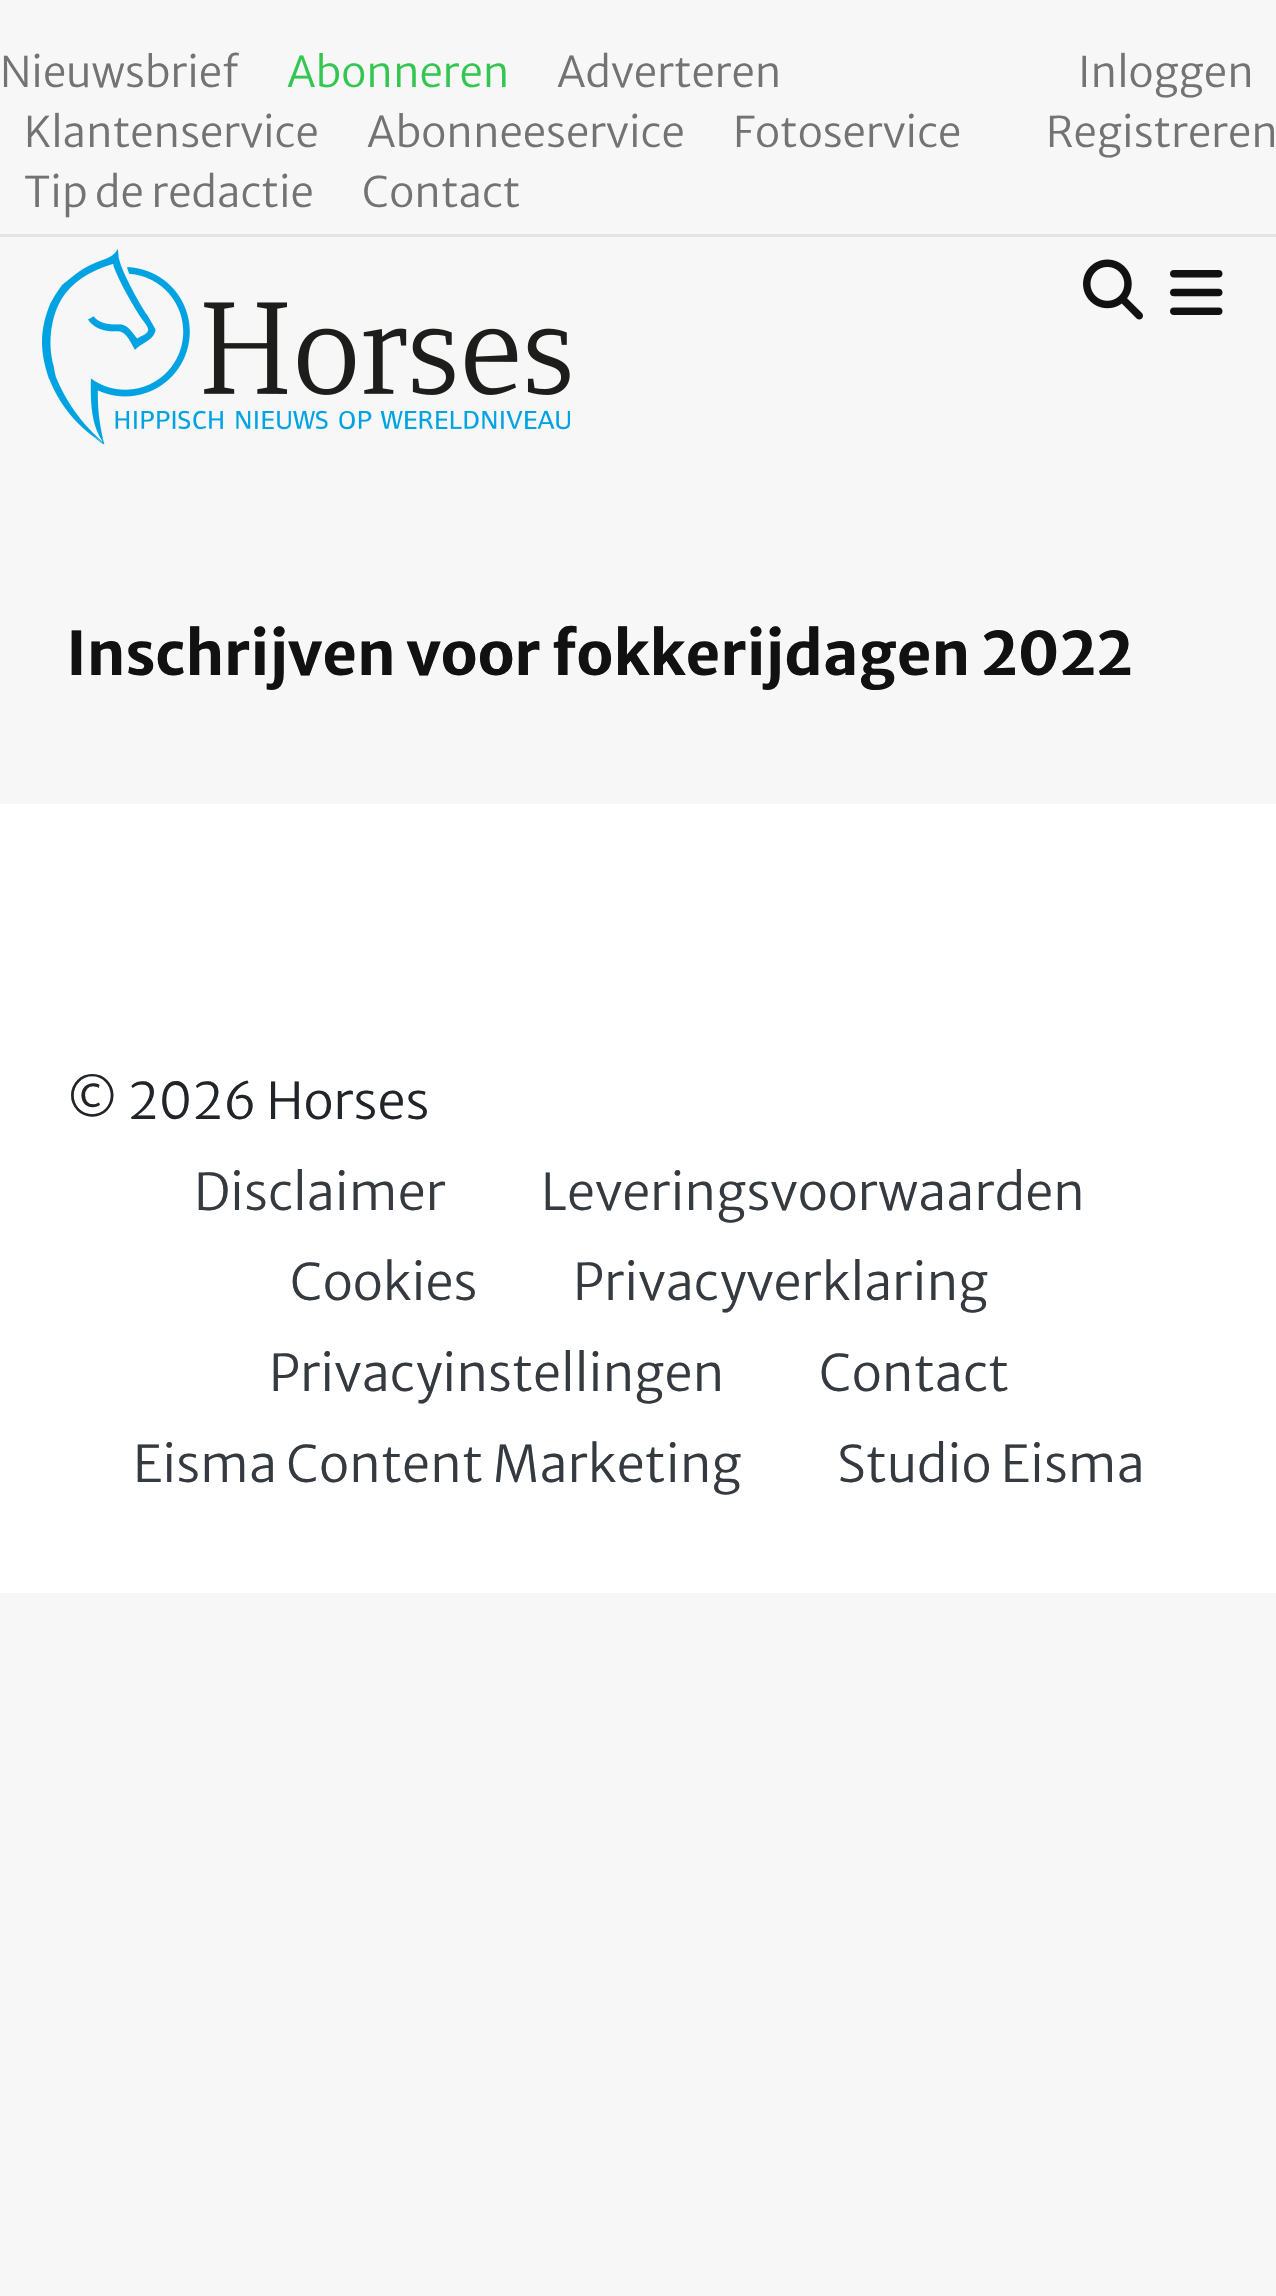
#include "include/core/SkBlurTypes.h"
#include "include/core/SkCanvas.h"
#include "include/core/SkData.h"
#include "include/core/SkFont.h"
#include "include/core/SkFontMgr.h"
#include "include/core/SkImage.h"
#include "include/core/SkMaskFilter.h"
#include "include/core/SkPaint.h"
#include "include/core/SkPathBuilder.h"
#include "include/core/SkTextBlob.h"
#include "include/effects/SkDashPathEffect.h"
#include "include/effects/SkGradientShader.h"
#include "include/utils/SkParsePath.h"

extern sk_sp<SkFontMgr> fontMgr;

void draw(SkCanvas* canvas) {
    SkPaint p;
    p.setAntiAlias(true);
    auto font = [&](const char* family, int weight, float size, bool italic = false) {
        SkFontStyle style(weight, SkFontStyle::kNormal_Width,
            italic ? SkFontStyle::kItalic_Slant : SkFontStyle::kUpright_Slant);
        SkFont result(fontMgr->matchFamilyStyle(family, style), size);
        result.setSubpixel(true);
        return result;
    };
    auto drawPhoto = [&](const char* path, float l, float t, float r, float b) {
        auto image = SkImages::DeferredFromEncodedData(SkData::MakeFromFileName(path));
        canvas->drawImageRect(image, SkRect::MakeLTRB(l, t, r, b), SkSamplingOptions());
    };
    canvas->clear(0xFFF7F7F7);
    p.setColor(0xFFE4E4E7);
    canvas->drawRect(SkRect::MakeLTRB(0, 234, 1276, 237), p);
    auto font1 = font("Merriweather Sans", 300, 42);
    p.setColor(0xFF737373);
    canvas->drawString("Nieuwsbrief", 0, 87, font1, p);
    p.setColor(0xFF33C751);
    canvas->drawString("Abonneren", 287, 87, font1, p);
    p.setColor(0xFF737373);
    {
        const struct { const char* s; float x, y; } items[] = {
            {"Adverteren", 557, 87},
            {"Klantenservice", 24, 147},
            {"Abonneeservice", 367, 147},
            {"Fotoservice", 733, 147},
            {"Tip de redactie", 24, 207},
            {"Contact", 362, 207},
            {"Inloggen", 1078, 87},
            {"Registreren", 1046, 147},
        };
        for (auto [s, x, y] : items) {
            canvas->drawString(s, x, y, font1, p);
        }
    }
    drawPhoto("media/1.png", 42, 249, 570, 444);
    drawPhoto("media/2.png", 1083, 259, 1143, 320);
    drawPhoto("media/3.png", 1170, 270, 1223, 315);
    auto font2 = font("Merriweather Sans", 700, 60);
    p.setColor(0xFF111111);
    canvas->drawString("Inschrijven voor fokkerijdagen 2022", 66, 675, font2, p);
    p.setColor(0xFFFFFFFF);
    canvas->drawRect(SkRect::MakeLTRB(0, 804, 1276, 1593), p);
    auto font3 = font("Merriweather Sans", 300, 50.4f);
    p.setColor(0xFF212529);
    canvas->drawString("© 2026 Horses", 66, 1119, font3, p);
    p.setColor(0xFF343A40);
    {
        const struct { const char* s; float x, y; } items[] = {
            {"Disclaimer", 194, 1210},
            {"Leveringsvoorwaarden", 541, 1210},
            {"Cookies", 290, 1300},
            {"Privacyverklaring", 573, 1300},
            {"Privacyinstellingen", 269, 1391},
            {"Contact", 819, 1391},
            {"Eisma Content Marketing", 133, 1482},
            {"Studio Eisma", 837, 1482},
        };
        for (auto [s, x, y] : items) {
            canvas->drawString(s, x, y, font3, p);
        }
    }
}
